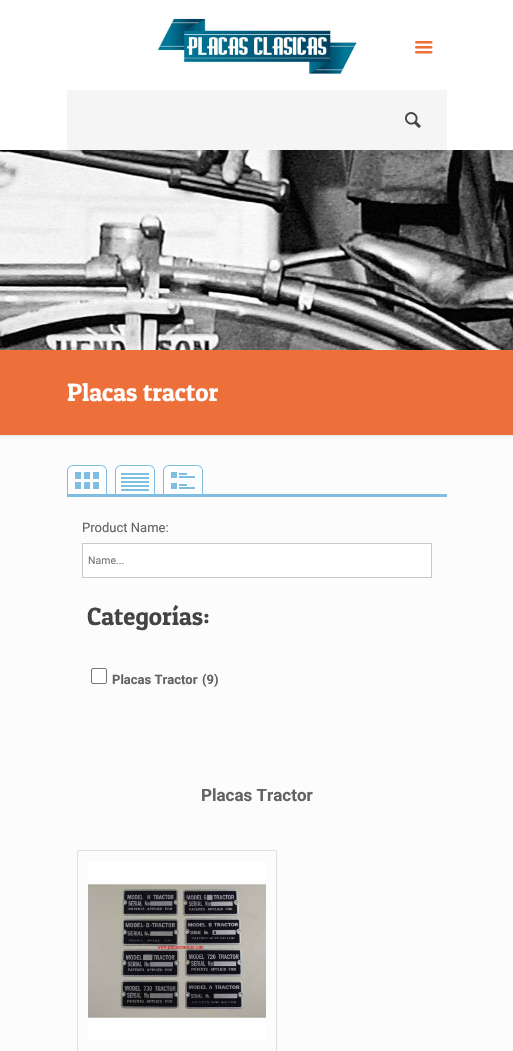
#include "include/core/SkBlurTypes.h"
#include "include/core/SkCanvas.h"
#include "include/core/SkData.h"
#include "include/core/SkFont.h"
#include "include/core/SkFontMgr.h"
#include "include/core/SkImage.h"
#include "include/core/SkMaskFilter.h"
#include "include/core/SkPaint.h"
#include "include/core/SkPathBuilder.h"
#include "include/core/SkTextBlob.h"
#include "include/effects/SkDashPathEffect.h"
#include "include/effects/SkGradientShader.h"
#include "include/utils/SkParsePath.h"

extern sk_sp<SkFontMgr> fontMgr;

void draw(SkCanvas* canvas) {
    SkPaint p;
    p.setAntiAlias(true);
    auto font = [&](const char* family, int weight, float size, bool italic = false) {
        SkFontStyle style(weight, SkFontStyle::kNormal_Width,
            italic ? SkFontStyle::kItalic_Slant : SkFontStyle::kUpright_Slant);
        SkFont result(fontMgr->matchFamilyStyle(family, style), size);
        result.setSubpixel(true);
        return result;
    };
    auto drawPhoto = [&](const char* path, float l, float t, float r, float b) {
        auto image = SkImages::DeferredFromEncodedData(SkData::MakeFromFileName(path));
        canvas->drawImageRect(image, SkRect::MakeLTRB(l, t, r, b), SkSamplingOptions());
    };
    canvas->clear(0xFFFCFCFC);
    drawPhoto("media/1.png", 0, 150, 513, 350);
    p.setColor(0xFFFFFFFF);
    canvas->drawRect(SkRect::MakeLTRB(0, 0, 513, 150), p);
    drawPhoto("media/2.png", 158, 18, 357, 75);
    drawPhoto("media/3.png", 415, 41, 433, 54);
    p.setColor(0xFFF5F5F5);
    canvas->drawRect(SkRect::MakeLTRB(67, 90, 447, 150), p);
    drawPhoto("media/4.png", 405, 112, 421, 128);
    p.setColor(0xFFED703A);
    canvas->drawRect(SkRect::MakeLTRB(0, 350, 513, 435), p);
    auto font1 = font("Patua One", 400, 25);
    p.setColor(0xFFFFFFFF);
    canvas->drawString("Placas tractor", 67, 401, font1, p);
    drawPhoto("media/5.png", 0, 435, 513, 437);
    p.setColor(0xFF80BEE1);
    canvas->drawRect(SkRect::MakeLTRB(67, 494, 447, 497), p);
    drawPhoto("media/6.png", 67, 465, 107, 494);
    drawPhoto("media/7.png", 115, 465, 155, 494);
    drawPhoto("media/8.png", 163, 465, 203, 494);
    auto font2 = font("Roboto", 400, 13);
    p.setColor(0xFF626262);
    canvas->drawString("Product Name:", 82, 532, font2, p);
    p.setColor(0xFFFFFFFF);
    canvas->drawRect(SkRect::MakeLTRB(82.5f, 543.5f, 431.5f, 577.5f), p);
    p.setStyle(SkPaint::kStroke_Style);
    p.setStrokeWidth(1);
    p.setColor(0xFFC9C9C9);
    canvas->drawRect(SkRect::MakeLTRB(82.5f, 543.5f, 431.5f, 577.5f), p);
    auto font3 = font("Roboto", 400, 10.5f);
    p.setStyle(SkPaint::kFill_Style);
    p.setColor(0xFF757575);
    canvas->drawString("Name...", 88, 564, font3, p);
    p.setColor(0xFF444444);
    canvas->drawString("Categorías:", 87, 625, font1, p);
    p.setColor(0xFFFFFFFF);
    canvas->drawRoundRect(SkRect::MakeLTRB(91.5f, 668.5f, 106.5f, 683.5f), 1.5f, 1.5f, p);
    p.setStyle(SkPaint::kStroke_Style);
    p.setColor(0xFF767676);
    canvas->drawRoundRect(SkRect::MakeLTRB(91.5f, 668.5f, 106.5f, 683.5f), 1.5f, 1.5f, p);
    auto font4 = font("Roboto", 700, 13);
    p.setStyle(SkPaint::kFill_Style);
    p.setColor(0xFF626262);
    canvas->drawString("Placas Tractor", 112, 684, font4, p);
    canvas->drawString("(9)", 202, 684, font4, p);
    auto font5 = font("Roboto", 700, 17);
    canvas->drawString("Placas Tractor", 201, 801, font5, p);
    p.setStyle(SkPaint::kStroke_Style);
    p.setColor(0xFFE0E0E0);
    canvas->drawRoundRect(SkRect::MakeLTRB(77.5f, 850.5f, 276.5f, 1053.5f), 1.5f, 1.5f, p);
    drawPhoto("media/9.png", 88, 862, 266, 1040);
}
